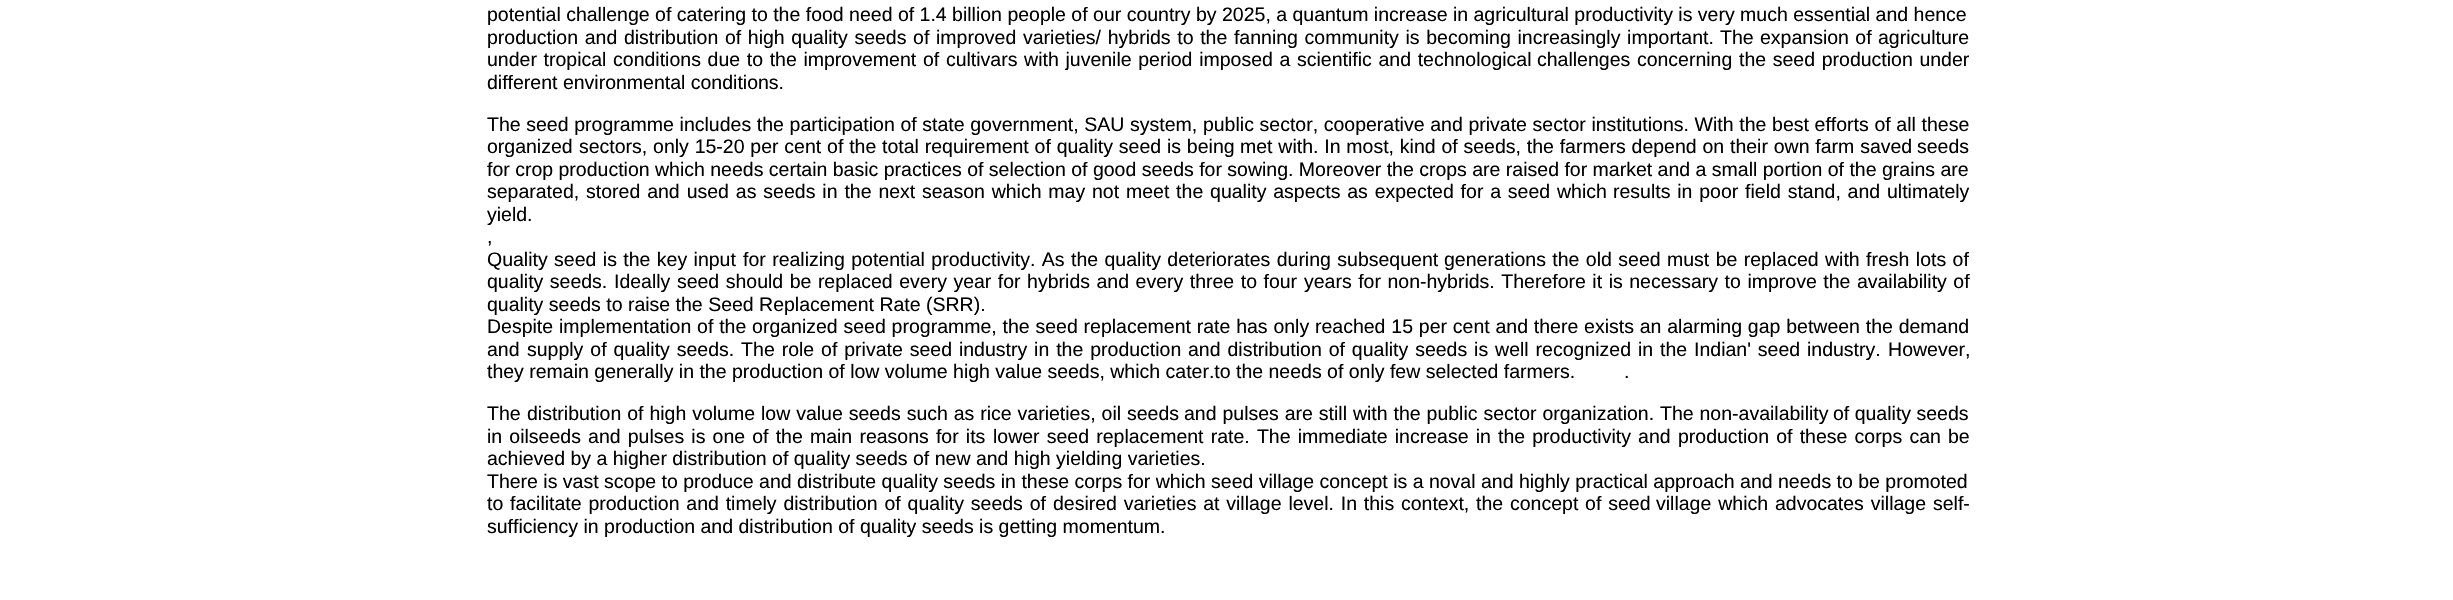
#include "include/core/SkBlurTypes.h"
#include "include/core/SkCanvas.h"
#include "include/core/SkData.h"
#include "include/core/SkFont.h"
#include "include/core/SkFontMgr.h"
#include "include/core/SkImage.h"
#include "include/core/SkMaskFilter.h"
#include "include/core/SkPaint.h"
#include "include/core/SkPathBuilder.h"
#include "include/core/SkTextBlob.h"
#include "include/effects/SkDashPathEffect.h"
#include "include/effects/SkGradientShader.h"
#include "include/utils/SkParsePath.h"

extern sk_sp<SkFontMgr> fontMgr;

void draw(SkCanvas* canvas) {
    SkPaint p;
    p.setAntiAlias(true);
    auto font = [&](const char* family, int weight, float size, bool italic = false) {
        SkFontStyle style(weight, SkFontStyle::kNormal_Width,
            italic ? SkFontStyle::kItalic_Slant : SkFontStyle::kUpright_Slant);
        SkFont result(fontMgr->matchFamilyStyle(family, style), size);
        result.setSubpixel(true);
        return result;
    };
    auto drawTracked = [&](const char* s, float x, float y, const SkFont& font, const SkPaint& ink, float letter, float word) {
        std::vector<SkGlyphID> glyphs(font.countText(s, strlen(s), SkTextEncoding::kUTF8));
        std::vector<float> xs(glyphs.size());
        font.textToGlyphs(s, strlen(s), SkTextEncoding::kUTF8, glyphs);
        font.getXPos(glyphs, xs, x);
        float extra = 0;
        for (size_t i = 0; i < glyphs.size(); i++) {
            xs[i] += extra;
            extra += letter + word * (glyphs[i] == font.unicharToGlyph(' '));
        }
        canvas->drawTextBlob(SkTextBlob::MakeFromPosHGlyphs(glyphs, xs, y, font), 0, 0, ink);
    };
    canvas->clear(0xFFFFFFFF);
    auto font1 = font("Liberation Sans", 400, 19.5f);
    p.setColor(0xFF000000);
    canvas->drawString("potential challenge of catering to the food need of 1.4 billion people of our country by 2025, a quantum increase in agricultural productivity is very much essential and hence", 487, 21, font1, p);
    drawTracked("production and distribution of high quality seeds of improved", 487, 44, font1, p, 0, 1.25f);
    drawTracked("varieties/ hybrids to the fanning community is becoming increasingly important.", 1023, 44, font1, p, 0, 1.25f);
    drawTracked("The expansion of agriculture", 1720, 44, font1, p, 0, 1);
    {
        const struct { const char* s; float x, y; } items[] = {
            {"under tropical conditions due to the improvement", 487, 66},
            {"of cultivars with juvenile period imposed a scientific and technological", 923, 66},
            {"challenges concerning the seed production under", 1537, 66},
        };
        for (auto [s, x, y] : items) {
            drawTracked(s, x, y, font1, p, 0, 1.25f);
        }
    }
    canvas->drawString("different environmental conditions.", 487, 89, font1, p);
    drawTracked("The seed programme includes the participation of state government, SAU system, public sector, cooperative and private sector institutions. With the best efforts of all these", 487, 131, font1, p, 0, 0.25f);
    canvas->drawString("organized", 487, 153, font1, p);
    drawTracked("sectors, only 15-20 per cent of the total requirement of quality seed is being", 579, 153, font1, p, 0, 0.4f);
    drawTracked("met with. In most, kind of seeds, the farmers depend on their own farm saved", 1240, 153, font1, p, 0, 0.4f);
    canvas->drawString("seeds", 1917, 153, font1, p);
    canvas->drawString("for crop production which needs certain basic practices of selection of good seeds for sowing. Moreover the crops are raised for market and a small portion of the grains are", 487, 176, font1, p);
    drawTracked("separated, stored and used as seeds in the next", 487, 198, font1, p, 0, 1.5f);
    drawTracked("season which may not meet the quality aspects as expected for a seed which", 922, 198, font1, p, 0, 1.4f);
    drawTracked("results in poor field stand, and ultimately", 1613, 198, font1, p, 0, 1.4f);
    canvas->drawString("yield.", 487, 221, font1, p);
    canvas->drawString(",", 487, 243, font1, p);
    {
        const struct { const char* s; float x, y; } items[] = {
            {"Quality seed is the key input", 487, 266},
            {"for realizing potential productivity. As the quality deteriorates during subsequent", 743, 266},
            {"generations the old seed must be replaced with fresh lots of", 1444, 266},
            {"quality seeds.", 487, 288},
        };
        for (auto [s, x, y] : items) {
            drawTracked(s, x, y, font1, p, 0, 1);
        }
    }
    drawTracked("Ideally seed should be replaced every year for hybrids and every three to four", 614, 288, font1, p, 0, 1.1f);
    drawTracked("years for non-hybrids. Therefore it is necessary to improve the availability of", 1304, 288, font1, p, 0, 1.1f);
    canvas->drawString("quality seeds to raise the Seed Replacement Rate (SRR).", 487, 311, font1, p);
    canvas->drawString("Despite", 487, 333, font1, p);
    drawTracked("implementation of the organized seed programme, the seed replacement rate has only", 559, 333, font1, p, 0, 0.4f);
    drawTracked("reached 15 per cent and there exists an alarming gap between the demand", 1315, 333, font1, p, 0, 0.4f);
    canvas->drawString("and", 487, 356, font1, p);
    drawTracked("supply of quality seeds. The role of private seed industry in the production", 527, 356, font1, p, 0, 1.5f);
    drawTracked("and distribution of quality seeds is well recognized in the Indian' seed", 1188, 356, font1, p, 0, 1.5f);
    drawTracked("industry. However,", 1807, 356, font1, p, 0, 2);
    canvas->drawString("they remain generally in the production of low volume high value seeds, which cater.to the needs of only few selected farmers.         .", 487, 378, font1, p);
    canvas->drawString("The", 487, 420, font1, p);
    drawTracked("distribution of high volume low value seeds such as rice varieties, oil seeds", 527, 420, font1, p, 0, 0.5f);
    drawTracked("and pulses are still with the public sector organization. The non-availability", 1184, 420, font1, p, 0, 0.5f);
    canvas->drawString("of quality seeds", 1833, 420, font1, p);
    {
        const struct { const char* s; float x, y; } items[] = {
            {"in oilseeds and pulses is one of the main reasons for its", 487, 443},
            {"lower seed replacement rate. The immediate increase in the productivity and", 993, 443},
            {"production of these corps can be", 1678, 443},
        };
        for (auto [s, x, y] : items) {
            drawTracked(s, x, y, font1, p, 0, 1.75f);
        }
    }
    canvas->drawString("achieved by a higher distribution of quality seeds of new and high yielding varieties.", 487, 465, font1, p);
    canvas->drawString("There is vast scope to produce and distribute quality seeds in these corps for which seed village concept is a noval and highly practical approach and needs to be promoted", 487, 488, font1, p);
    drawTracked("to facilitate production and timely distribution of quality seeds of", 487, 510, font1, p, 0, 1.4f);
    drawTracked("desired varieties at village level. In this context, the concept of seed", 1053, 510, font1, p, 0, 1.4f);
    drawTracked("village which advocates village self-", 1656, 510, font1, p, 0, 1.5f);
    canvas->drawString("sufficiency in production and distribution of quality seeds is getting momentum.", 487, 533, font1, p);
}
